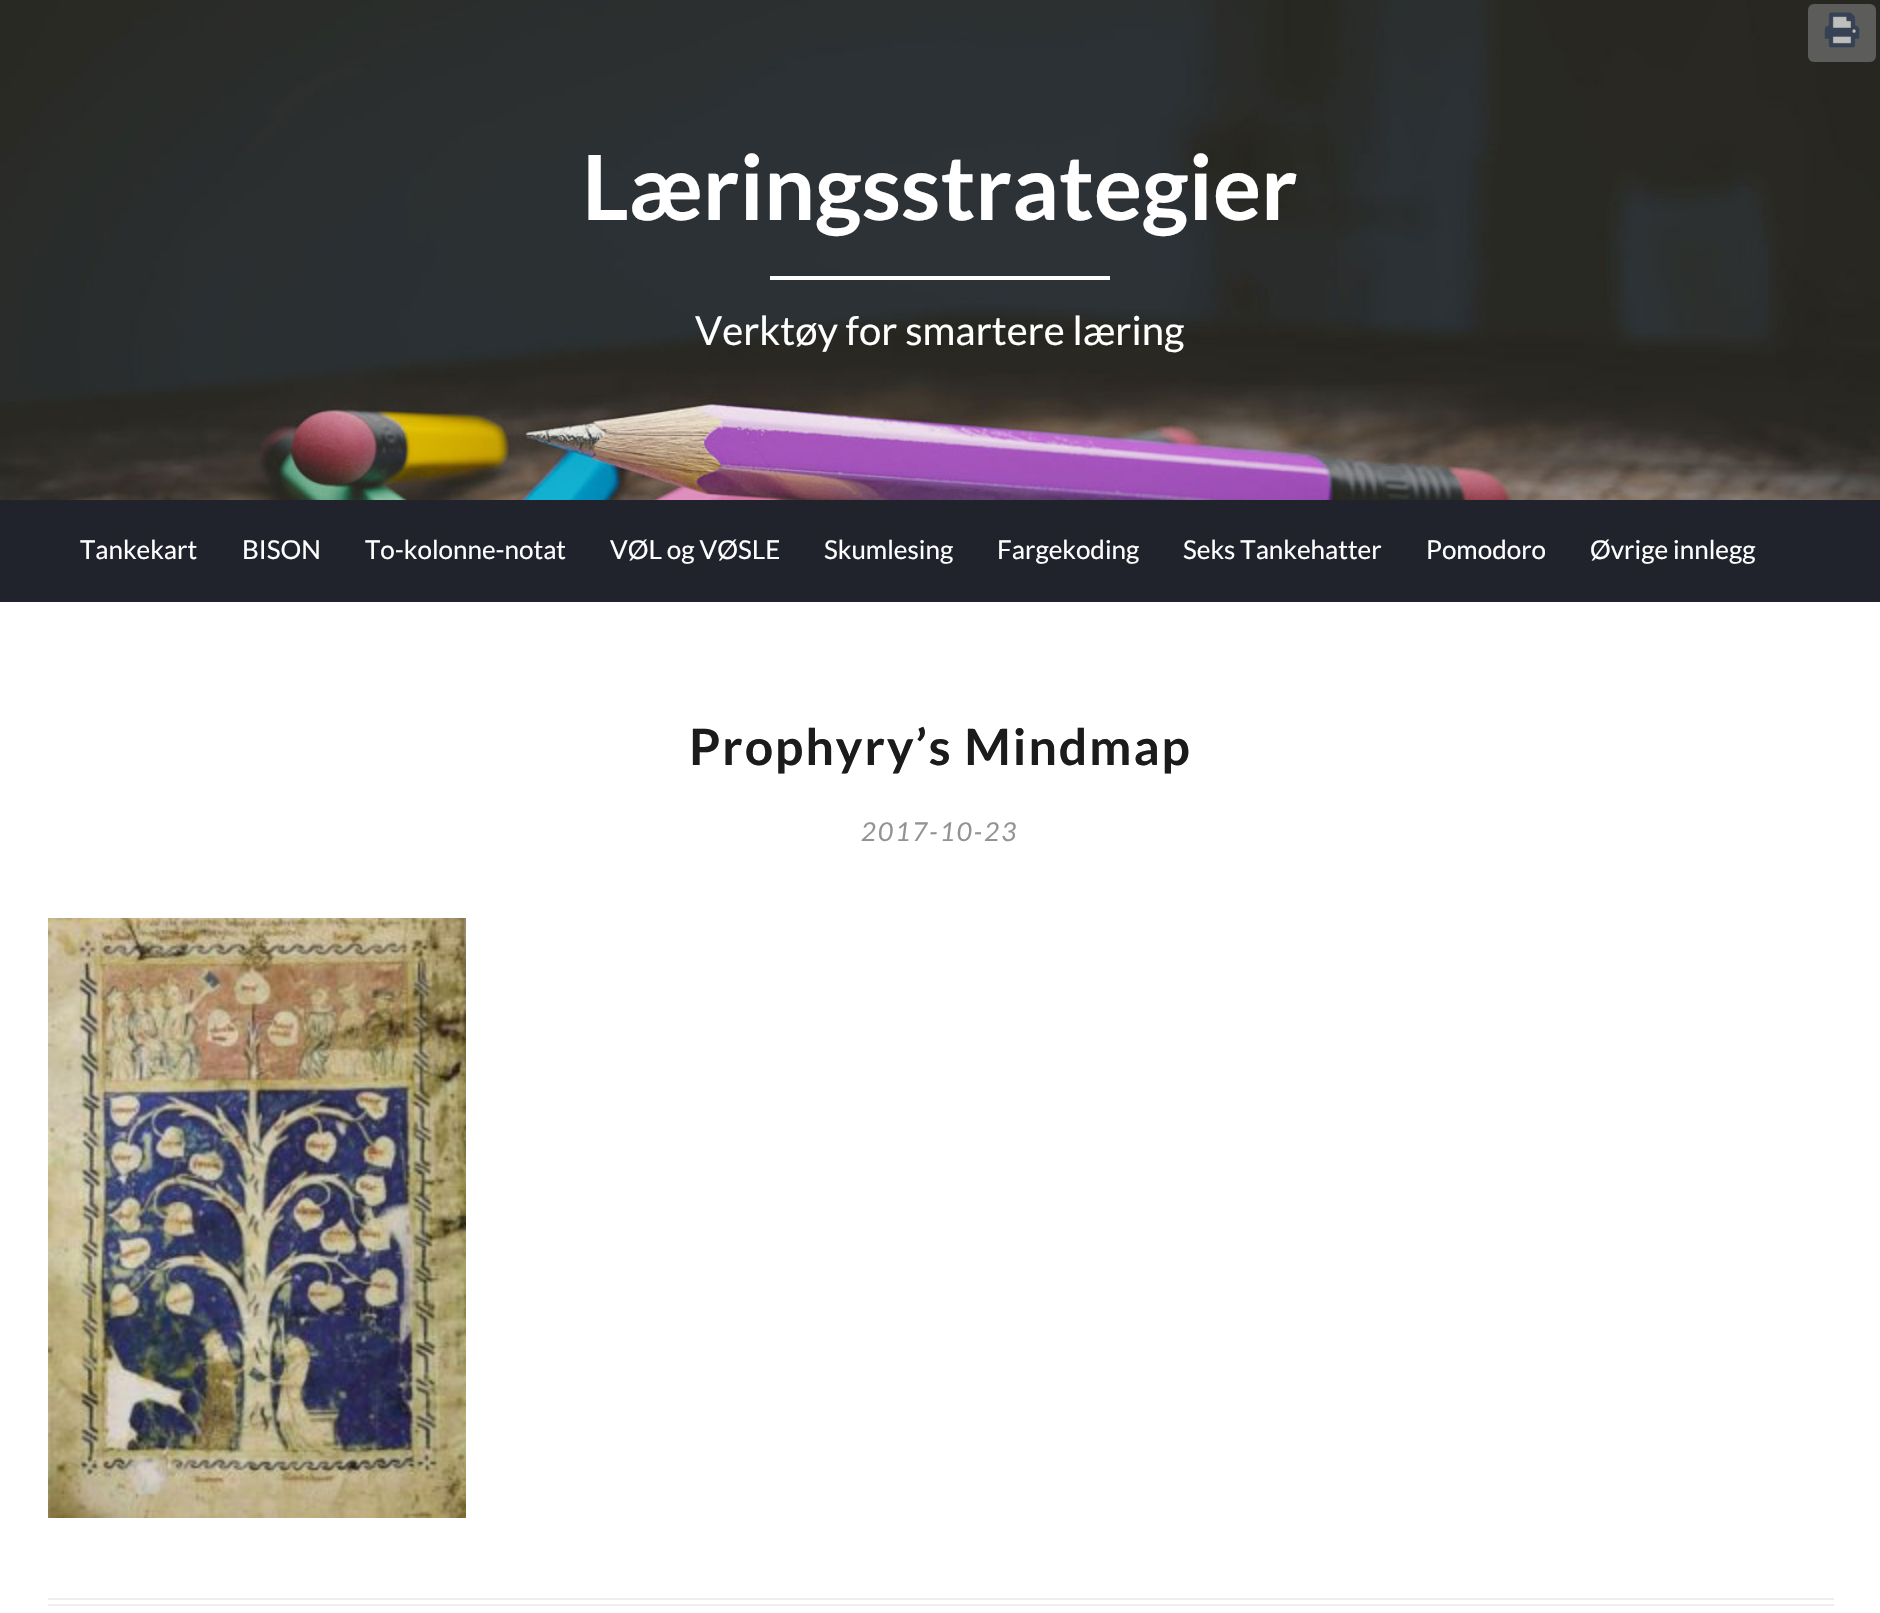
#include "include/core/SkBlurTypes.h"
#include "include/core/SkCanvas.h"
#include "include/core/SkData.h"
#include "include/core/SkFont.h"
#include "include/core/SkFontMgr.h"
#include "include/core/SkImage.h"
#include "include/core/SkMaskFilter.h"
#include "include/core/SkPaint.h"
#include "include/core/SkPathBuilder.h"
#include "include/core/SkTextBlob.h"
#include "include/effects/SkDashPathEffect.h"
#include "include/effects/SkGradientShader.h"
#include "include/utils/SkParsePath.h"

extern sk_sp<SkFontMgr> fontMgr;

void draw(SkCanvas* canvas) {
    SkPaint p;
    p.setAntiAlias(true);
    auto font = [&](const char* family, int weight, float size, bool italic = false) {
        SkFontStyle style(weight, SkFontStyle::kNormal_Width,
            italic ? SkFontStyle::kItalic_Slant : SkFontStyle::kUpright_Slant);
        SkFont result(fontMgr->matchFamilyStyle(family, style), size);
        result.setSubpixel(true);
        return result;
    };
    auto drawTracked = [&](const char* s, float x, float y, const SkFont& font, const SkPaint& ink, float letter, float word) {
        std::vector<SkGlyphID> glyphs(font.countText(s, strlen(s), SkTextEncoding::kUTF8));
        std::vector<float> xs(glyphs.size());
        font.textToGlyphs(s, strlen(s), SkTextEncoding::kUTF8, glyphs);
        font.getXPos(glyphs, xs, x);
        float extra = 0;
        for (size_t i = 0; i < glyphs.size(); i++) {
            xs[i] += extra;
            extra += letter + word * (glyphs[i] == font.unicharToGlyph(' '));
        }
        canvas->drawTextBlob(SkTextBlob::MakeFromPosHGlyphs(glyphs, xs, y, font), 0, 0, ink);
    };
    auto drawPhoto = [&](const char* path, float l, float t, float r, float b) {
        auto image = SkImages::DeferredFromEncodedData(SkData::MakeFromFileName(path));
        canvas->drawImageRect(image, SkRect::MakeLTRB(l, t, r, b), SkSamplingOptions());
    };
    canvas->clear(0xFFFFFFFF);
    drawPhoto("media/2.png", 0, 0, 1880, 500);
    p.setColor(0xFF5C5C5A);
    canvas->drawRoundRect(SkRect::MakeLTRB(1808, 4, 1876, 62), 6, 6, p);
    drawPhoto("media/1.png", 1824, 12, 1860, 48);
    auto font1 = font("Lato", 700, 90);
    p.setColor(0xFFFFFFFF);
    canvas->drawString("Læringsstrategier", 582, 220, font1, p);
    canvas->drawRect(SkRect::MakeLTRB(770, 276, 1110, 280), p);
    auto font2 = font("Lato", 400, 40);
    canvas->drawString("Verktøy for smartere læring", 695, 345, font2, p);
    p.setColor(0xFF20232C);
    canvas->drawRect(SkRect::MakeLTRB(0, 500, 1880, 602), p);
    auto font3 = font("Lato", 400, 26);
    p.setColor(0xFFFFFFFF);
    {
        const struct { const char* s; float x, y; } items[] = {
            {"Tankekart", 80, 559},
            {"BISON", 242, 559},
            {"To-kolonne-notat", 365, 559},
            {"VØL og VØSLE", 610, 559},
            {"Skumlesing", 824, 559},
            {"Fargekoding", 997, 559},
            {"Seks Tankehatter", 1183, 559},
            {"Pomodoro", 1426, 559},
            {"Øvrige innlegg", 1590, 559},
        };
        for (auto [s, x, y] : items) {
            canvas->drawString(s, x, y, font3, p);
        }
    }
    auto font4 = font("Lato", 700, 50);
    p.setColor(0xFF1B1B1B);
    drawTracked("Prophyry’s Mindmap", 689, 765, font4, p, 2, 0);
    auto font5 = font("Lato", 400, 26, true);
    p.setColor(0xFF939393);
    drawTracked("2017-10-23", 861, 841, font5, p, 2, 0);
    drawPhoto("media/3.png", 48, 918, 466, 1518);
    p.setColor(0xFFEEEEEE);
    canvas->drawRect(SkRect::MakeLTRB(48, 1598, 1834, 1600), p);
    canvas->drawRect(SkRect::MakeLTRB(48, 1604, 1834, 1606), p);
}
